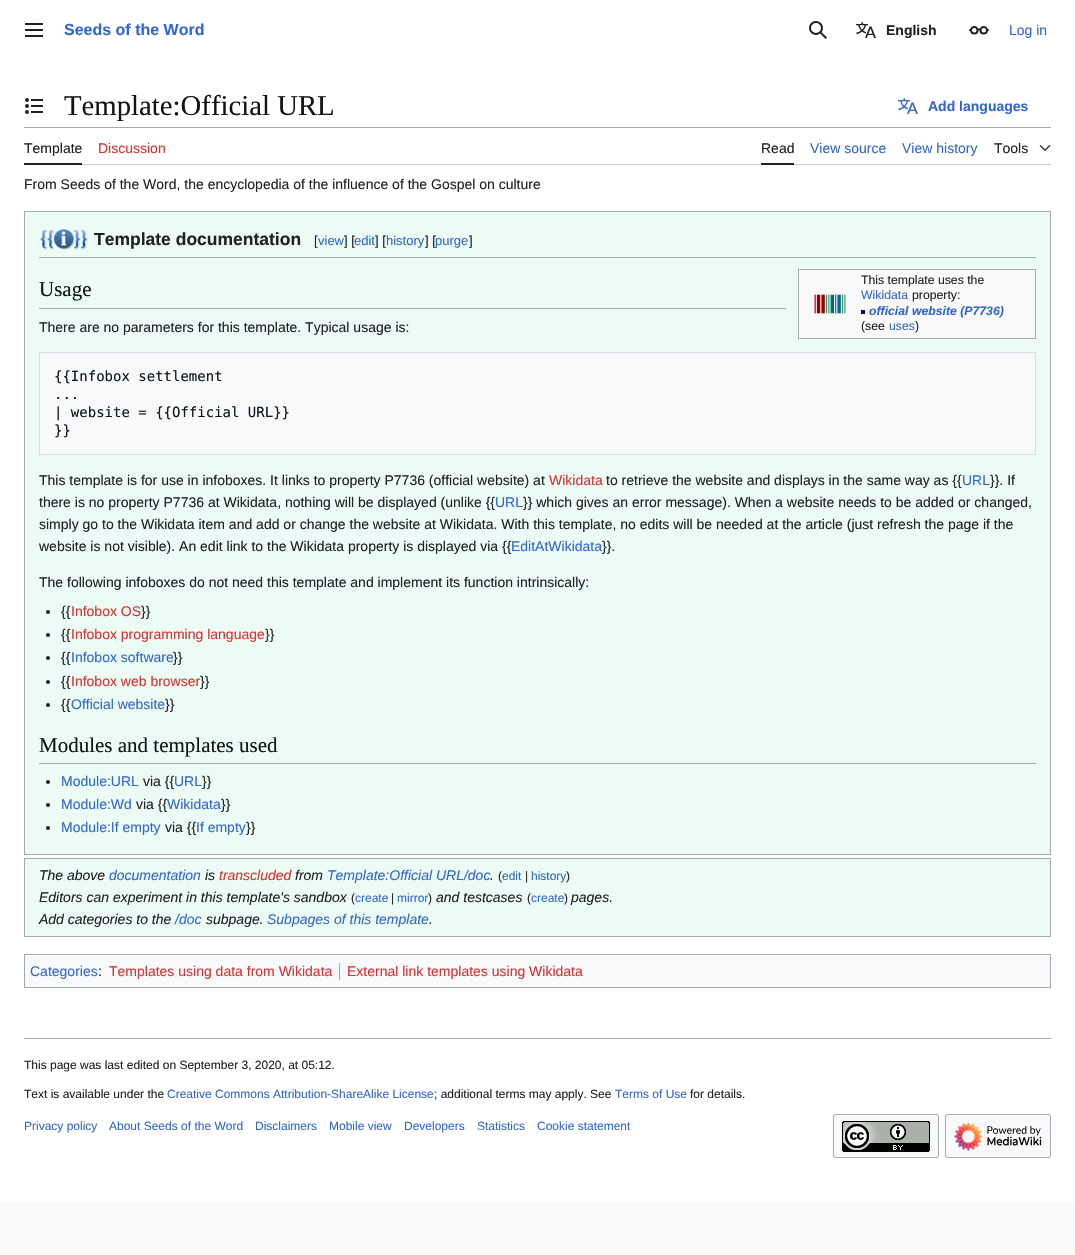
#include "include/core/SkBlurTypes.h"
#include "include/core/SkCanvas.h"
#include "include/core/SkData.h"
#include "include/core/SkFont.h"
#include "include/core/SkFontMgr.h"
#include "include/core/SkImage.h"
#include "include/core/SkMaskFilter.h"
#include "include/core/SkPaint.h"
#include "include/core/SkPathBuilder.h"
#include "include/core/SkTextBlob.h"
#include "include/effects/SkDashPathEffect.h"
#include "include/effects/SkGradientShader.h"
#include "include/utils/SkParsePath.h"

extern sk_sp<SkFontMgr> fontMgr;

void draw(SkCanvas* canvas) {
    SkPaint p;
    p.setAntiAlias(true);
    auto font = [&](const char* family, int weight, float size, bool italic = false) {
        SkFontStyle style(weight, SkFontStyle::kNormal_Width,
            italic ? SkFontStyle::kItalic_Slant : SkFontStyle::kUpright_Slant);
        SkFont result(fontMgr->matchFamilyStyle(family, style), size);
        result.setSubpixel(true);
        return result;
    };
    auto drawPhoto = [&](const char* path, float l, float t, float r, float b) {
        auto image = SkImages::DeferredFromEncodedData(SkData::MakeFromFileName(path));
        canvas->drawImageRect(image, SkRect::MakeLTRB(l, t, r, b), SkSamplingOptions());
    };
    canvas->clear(0xFFF8F9FA);
    p.setColor(0xFFFFFFFF);
    canvas->drawRect(SkRect::MakeLTRB(0, 0, 1075, 1202), p);
    drawPhoto("media/1.png", 25, 23, 43, 37);
    auto font1 = font("Liberation Sans", 700, 16);
    p.setColor(0xFF3366CC);
    canvas->drawString("Seeds of the Word", 64, 35, font1, p);
    drawPhoto("media/2.png", 809, 21, 827, 39);
    drawPhoto("media/3.png", 856, 22, 876, 38);
    auto font2 = font("Liberation Sans", 700, 14);
    p.setColor(0xFF202122);
    canvas->drawString("English", 886, 35, font2, p);
    drawPhoto("media/4.png", 969, 26, 989, 35);
    auto font3 = font("Liberation Sans", 400, 14);
    p.setColor(0xFF3366CC);
    canvas->drawString("Log in", 1009, 35, font3, p);
    drawPhoto("media/5.png", 25, 98, 43, 114);
    auto font4 = font("Liberation Serif", 400, 28.75f);
    p.setColor(0xFF101418);
    canvas->drawString("Template:Official URL", 64, 115, font4, p);
    drawPhoto("media/6.png", 898, 98, 918, 114);
    p.setColor(0xFF3366CC);
    canvas->drawString("Add languages", 928, 111, font2, p);
    {
        const struct { float l, t, r, b; SkColor color; } items[] = {
            {24, 127, 1051, 128, 0xFFA2A9B1},
            {82, 164, 1051, 165, 0xFFC8CCD1},
            {24, 163, 82, 165, 0xFF202122},
        };
        for (auto [l, t, r, b, color] : items) {
            p.setColor(color);
            canvas->drawRect(SkRect::MakeLTRB(l, t, r, b), p);
        }
    }
    canvas->drawString("Template", 24, 153, font3, p);
    p.setColor(0xFFD73333);
    canvas->drawString("Discussion", 98, 153, font3, p);
    p.setColor(0xFF202122);
    canvas->drawRect(SkRect::MakeLTRB(761, 163, 794, 165), p);
    canvas->drawString("Read", 761, 153, font3, p);
    p.setColor(0xFF3366CC);
    canvas->drawString("View source", 810, 153, font3, p);
    canvas->drawString("View history", 902, 153, font3, p);
    p.setColor(0xFF202122);
    canvas->drawString("Tools", 994, 153, font3, p);
    drawPhoto("media/7.png", 1039, 145, 1051, 151);
    canvas->drawString("From Seeds of the Word, the encyclopedia of the influence of the Gospel on culture", 24, 189, font3, p);
    p.setColor(0xFFECFCF4);
    canvas->drawRect(SkRect::MakeLTRB(24.5f, 211.5f, 1050.5f, 854.5f), p);
    p.setStyle(SkPaint::kStroke_Style);
    p.setStrokeWidth(1);
    p.setColor(0xFFA2A9B1);
    canvas->drawRect(SkRect::MakeLTRB(24.5f, 211.5f, 1050.5f, 854.5f), p);
    p.setStyle(SkPaint::kFill_Style);
    p.setColor(0xFFAAAAAA);
    canvas->drawRect(SkRect::MakeLTRB(39, 257, 1036, 258), p);
    drawPhoto("media/8.png", 40, 229, 88, 250);
    auto font5 = font("Liberation Sans", 700, 17.5f);
    p.setColor(0xFF202122);
    canvas->drawString("Template documentation", 94, 245, font5, p);
    auto font6 = font("Liberation Sans", 400, 13);
    canvas->drawString("[", 314, 245, font6, p);
    p.setColor(0xFF3366CC);
    canvas->drawString("view", 318, 245, font6, p);
    p.setColor(0xFF202122);
    canvas->drawString("] [", 344, 245, font6, p);
    p.setColor(0xFF3366CC);
    canvas->drawString("edit", 354, 245, font6, p);
    p.setColor(0xFF202122);
    canvas->drawString("] [", 375, 245, font6, p);
    p.setColor(0xFF3366CC);
    canvas->drawString("history", 386, 245, font6, p);
    p.setColor(0xFF202122);
    canvas->drawString("] [", 425, 245, font6, p);
    p.setColor(0xFF3366CC);
    canvas->drawString("purge", 435, 245, font6, p);
    p.setColor(0xFF202122);
    canvas->drawString("]", 469, 245, font6, p);
    p.setColor(0xFFA2A9B1);
    canvas->drawRect(SkRect::MakeLTRB(39, 308, 786, 309), p);
    auto font7 = font("Liberation Serif", 400, 21);
    p.setColor(0xFF101418);
    canvas->drawString("Usage", 39, 296, font7, p);
    p.setColor(0xFFF9F9F9);
    canvas->drawRect(SkRect::MakeLTRB(798.5f, 269.5f, 1035.5f, 338.5f), p);
    p.setStyle(SkPaint::kStroke_Style);
    p.setColor(0xFFAAAAAA);
    canvas->drawRect(SkRect::MakeLTRB(798.5f, 269.5f, 1035.5f, 338.5f), p);
    drawPhoto("media/9.png", 814, 294, 846, 314);
    auto font8 = font("Liberation Sans", 400, 12.25f);
    p.setStyle(SkPaint::kFill_Style);
    p.setColor(0xFF202122);
    canvas->drawString("This template uses the", 861, 284, font8, p);
    p.setColor(0xFF3366CC);
    canvas->drawString("Wikidata", 861, 299, font8, p);
    p.setColor(0xFF202122);
    canvas->drawString("property:", 912, 299, font8, p);
    p.setColor(0xFF000081);
    canvas->drawRect(SkRect::MakeLTRB(861, 310, 865, 314), p);
    auto font9 = font("Liberation Sans", 700, 12.25f, true);
    p.setColor(0xFF3366CC);
    canvas->drawString("official website (P7736)", 869, 315, font9, p);
    p.setColor(0xFF202122);
    canvas->drawString("(see", 861, 330, font8, p);
    p.setColor(0xFF3366CC);
    canvas->drawString("uses", 889, 330, font8, p);
    p.setColor(0xFF202122);
    canvas->drawString(")", 915, 330, font8, p);
    canvas->drawString("There are no parameters for this template. Typical usage is:", 39, 332, font3, p);
    p.setColor(0xFFF8F9FA);
    canvas->drawRect(SkRect::MakeLTRB(39.5f, 352.5f, 1035.5f, 454.5f), p);
    p.setStyle(SkPaint::kStroke_Style);
    p.setColor(0xFFDADDE3);
    canvas->drawRect(SkRect::MakeLTRB(39.5f, 352.5f, 1035.5f, 454.5f), p);
    auto font10 = font("DejaVu Sans Mono", 400, 14);
    p.setStyle(SkPaint::kFill_Style);
    p.setColor(0xFF101418);
    {
        const struct { const char* s; float x, y; } items[] = {
            {"{{Infobox settlement", 54, 381},
            {"...", 54, 399},
            {"| website = {{Official URL}}", 54, 417},
            {"}}", 54, 435},
        };
        for (auto [s, x, y] : items) {
            canvas->drawString(s, x, y, font10, p);
        }
    }
    p.setColor(0xFF202122);
    canvas->drawString("This template is for use in infoboxes. It links to property P7736 (official website) at", 39, 485, font3, p);
    p.setColor(0xFFD73333);
    canvas->drawString("Wikidata", 549, 485, font3, p);
    p.setColor(0xFF202122);
    canvas->drawString("to retrieve the website and displays in the same way as {{", 606, 485, font3, p);
    p.setColor(0xFF3366CC);
    canvas->drawString("URL", 962, 485, font3, p);
    p.setColor(0xFF202122);
    canvas->drawString("}}. If", 990, 485, font3, p);
    canvas->drawString("there is no property P7736 at Wikidata, nothing will be displayed (unlike {{", 39, 507, font3, p);
    p.setColor(0xFF3366CC);
    canvas->drawString("URL", 495, 507, font3, p);
    p.setColor(0xFF202122);
    {
        const struct { const char* s; float x, y; } items[] = {
            {"}} which gives an error message). When a website needs to be added or changed,", 523, 507},
            {"simply go to the Wikidata item and add or change the website at Wikidata. With this template, no edits will be needed at the article (just refresh the page if the", 39, 529},
            {"website is not visible). An edit link to the Wikidata property is displayed via {{", 39, 551},
        };
        for (auto [s, x, y] : items) {
            canvas->drawString(s, x, y, font3, p);
        }
    }
    p.setColor(0xFF3366CC);
    canvas->drawString("EditAtWikidata", 511, 551, font3, p);
    p.setColor(0xFF202122);
    canvas->drawString("}}.", 602, 551, font3, p);
    canvas->drawString("The following infoboxes do not need this template and implement its function intrinsically:", 39, 587, font3, p);
    canvas->drawCircle(48, 612, 2, p);
    canvas->drawString("{{", 61, 616, font3, p);
    p.setColor(0xFFD73333);
    canvas->drawString("Infobox OS", 71, 616, font3, p);
    p.setColor(0xFF202122);
    canvas->drawString("}}", 141, 616, font3, p);
    canvas->drawCircle(48, 635, 2, p);
    canvas->drawString("{{", 61, 639, font3, p);
    p.setColor(0xFFD73333);
    canvas->drawString("Infobox programming language", 71, 639, font3, p);
    p.setColor(0xFF202122);
    canvas->drawString("}}", 265, 639, font3, p);
    canvas->drawCircle(48, 658, 2, p);
    canvas->drawString("{{", 61, 662, font3, p);
    p.setColor(0xFF3366CC);
    canvas->drawString("Infobox software", 71, 662, font3, p);
    p.setColor(0xFF202122);
    canvas->drawString("}}", 173, 662, font3, p);
    canvas->drawCircle(48, 682, 2, p);
    canvas->drawString("{{", 61, 686, font3, p);
    p.setColor(0xFFD73333);
    canvas->drawString("Infobox web browser", 71, 686, font3, p);
    p.setColor(0xFF202122);
    canvas->drawString("}}", 200, 686, font3, p);
    canvas->drawCircle(48, 705, 2, p);
    canvas->drawString("{{", 61, 709, font3, p);
    p.setColor(0xFF3366CC);
    canvas->drawString("Official website", 71, 709, font3, p);
    p.setColor(0xFF202122);
    canvas->drawString("}}", 165, 709, font3, p);
    p.setColor(0xFFA2A9B1);
    canvas->drawRect(SkRect::MakeLTRB(39, 763, 1036, 764), p);
    p.setColor(0xFF101418);
    canvas->drawString("Modules and templates used", 39, 752, font7, p);
    p.setColor(0xFF202122);
    canvas->drawCircle(48, 782, 2, p);
    p.setColor(0xFF3366CC);
    canvas->drawString("Module:URL", 61, 786, font3, p);
    p.setColor(0xFF202122);
    canvas->drawString("via {{", 143, 786, font3, p);
    p.setColor(0xFF3366CC);
    canvas->drawString("URL", 174, 786, font3, p);
    p.setColor(0xFF202122);
    canvas->drawString("}}", 202, 786, font3, p);
    canvas->drawCircle(48, 805, 2, p);
    p.setColor(0xFF3366CC);
    canvas->drawString("Module:Wd", 61, 809, font3, p);
    p.setColor(0xFF202122);
    canvas->drawString("via {{", 136, 809, font3, p);
    p.setColor(0xFF3366CC);
    canvas->drawString("Wikidata", 167, 809, font3, p);
    p.setColor(0xFF202122);
    canvas->drawString("}}", 221, 809, font3, p);
    canvas->drawCircle(48, 828, 2, p);
    p.setColor(0xFF3366CC);
    canvas->drawString("Module:If empty", 61, 832, font3, p);
    p.setColor(0xFF202122);
    canvas->drawString("via {{", 165, 832, font3, p);
    p.setColor(0xFF3366CC);
    canvas->drawString("If empty", 196, 832, font3, p);
    p.setColor(0xFF202122);
    canvas->drawString("}}", 246, 832, font3, p);
    p.setColor(0xFFECFCF4);
    canvas->drawRect(SkRect::MakeLTRB(24.5f, 858.5f, 1050.5f, 936.5f), p);
    p.setStyle(SkPaint::kStroke_Style);
    p.setColor(0xFFA2A9B1);
    canvas->drawRect(SkRect::MakeLTRB(24.5f, 858.5f, 1050.5f, 936.5f), p);
    auto font11 = font("Liberation Sans", 400, 14, true);
    p.setStyle(SkPaint::kFill_Style);
    p.setColor(0xFF202122);
    canvas->drawString("The above", 39, 880, font11, p);
    p.setColor(0xFF3366CC);
    canvas->drawString("documentation", 109, 880, font11, p);
    p.setColor(0xFF202122);
    canvas->drawString("is", 205, 880, font11, p);
    p.setColor(0xFFD73333);
    canvas->drawString("transcluded", 219, 880, font11, p);
    p.setColor(0xFF202122);
    canvas->drawString("from", 295, 880, font11, p);
    p.setColor(0xFF3366CC);
    canvas->drawString("Template:Official URL/doc", 327, 880, font11, p);
    p.setColor(0xFF202122);
    canvas->drawString(".", 490, 880, font11, p);
    auto font12 = font("Liberation Sans", 400, 12);
    canvas->drawString("(", 498, 880, font12, p);
    p.setColor(0xFF3366CC);
    canvas->drawString("edit", 502, 880, font12, p);
    p.setColor(0xFF202122);
    canvas->drawString("|", 525, 880, font12, p);
    p.setColor(0xFF3366CC);
    canvas->drawString("history", 531, 880, font12, p);
    p.setColor(0xFF202122);
    canvas->drawString(")", 566, 880, font12, p);
    canvas->drawString("Editors can experiment in this template's sandbox", 39, 902, font11, p);
    canvas->drawString("(", 351, 902, font12, p);
    p.setColor(0xFF3366CC);
    canvas->drawString("create", 355, 902, font12, p);
    p.setColor(0xFF202122);
    canvas->drawString("|", 391, 902, font12, p);
    p.setColor(0xFF3366CC);
    canvas->drawString("mirror", 397, 902, font12, p);
    p.setColor(0xFF202122);
    canvas->drawString(")", 428, 902, font12, p);
    canvas->drawString("and testcases", 436, 902, font11, p);
    canvas->drawString("(", 527, 902, font12, p);
    p.setColor(0xFF3366CC);
    canvas->drawString("create", 531, 902, font12, p);
    p.setColor(0xFF202122);
    canvas->drawString(")", 564, 902, font12, p);
    canvas->drawString("pages.", 571, 902, font11, p);
    canvas->drawString("Add categories to the", 39, 924, font11, p);
    p.setColor(0xFF3366CC);
    canvas->drawString("/doc", 175, 924, font11, p);
    p.setColor(0xFF202122);
    canvas->drawString("subpage.", 206, 924, font11, p);
    p.setColor(0xFF3366CC);
    canvas->drawString("Subpages of this template", 267, 924, font11, p);
    p.setColor(0xFF202122);
    canvas->drawString(".", 429, 924, font11, p);
    p.setColor(0xFFF8F9FA);
    canvas->drawRect(SkRect::MakeLTRB(24.5f, 954.5f, 1050.5f, 987.5f), p);
    p.setStyle(SkPaint::kStroke_Style);
    p.setColor(0xFFA2A9B1);
    canvas->drawRect(SkRect::MakeLTRB(24.5f, 954.5f, 1050.5f, 987.5f), p);
    p.setStyle(SkPaint::kFill_Style);
    p.setColor(0xFF3366CC);
    canvas->drawString("Categories", 30, 976, font3, p);
    p.setColor(0xFF202122);
    canvas->drawString(":", 98, 976, font3, p);
    p.setColor(0xFFD73333);
    canvas->drawString("Templates using data from Wikidata", 109, 976, font3, p);
    p.setColor(0xFFA2A9B1);
    canvas->drawRect(SkRect::MakeLTRB(339, 963, 340, 980), p);
    p.setColor(0xFFD73333);
    canvas->drawString("External link templates using Wikidata", 347, 976, font3, p);
    p.setColor(0xFFA2A9B1);
    canvas->drawRect(SkRect::MakeLTRB(24, 1038, 1051, 1039), p);
    p.setColor(0xFF202122);
    canvas->drawString("This page was last edited on September 3, 2020, at 05:12.", 24, 1069, font12, p);
    canvas->drawString("Text is available under the", 24, 1098, font12, p);
    p.setColor(0xFF3366CC);
    canvas->drawString("Creative Commons Attribution-ShareAlike License", 167, 1098, font12, p);
    p.setColor(0xFF202122);
    canvas->drawString("; additional terms may apply. See", 434, 1098, font12, p);
    p.setColor(0xFF3366CC);
    canvas->drawString("Terms of Use", 615, 1098, font12, p);
    p.setColor(0xFF202122);
    canvas->drawString("for details.", 690, 1098, font12, p);
    p.setColor(0xFF3366CC);
    {
        const struct { const char* s; float x, y; } items[] = {
            {"Privacy policy", 24, 1130},
            {"About Seeds of the Word", 109, 1130},
            {"Disclaimers", 255, 1130},
            {"Mobile view", 329, 1130},
            {"Developers", 404, 1130},
            {"Statistics", 477, 1130},
            {"Cookie statement", 537, 1130},
        };
        for (auto [s, x, y] : items) {
            canvas->drawString(s, x, y, font12, p);
        }
    }
    p.setColor(0xFFF8F9FA);
    canvas->drawRoundRect(SkRect::MakeLTRB(833.5f, 1114.5f, 938.5f, 1157.5f), 1.5f, 1.5f, p);
    p.setStyle(SkPaint::kStroke_Style);
    p.setColor(0xFFA2A9B1);
    canvas->drawRoundRect(SkRect::MakeLTRB(833.5f, 1114.5f, 938.5f, 1157.5f), 1.5f, 1.5f, p);
    drawPhoto("media/10.png", 842, 1121, 930, 1152);
    p.setStyle(SkPaint::kFill_Style);
    p.setColor(0xFFF8F9FA);
    canvas->drawRoundRect(SkRect::MakeLTRB(945.5f, 1114.5f, 1050.5f, 1157.5f), 1.5f, 1.5f, p);
    p.setStyle(SkPaint::kStroke_Style);
    p.setColor(0xFFA2A9B1);
    canvas->drawRoundRect(SkRect::MakeLTRB(945.5f, 1114.5f, 1050.5f, 1157.5f), 1.5f, 1.5f, p);
    drawPhoto("media/11.png", 954, 1122, 1042, 1151);
}
